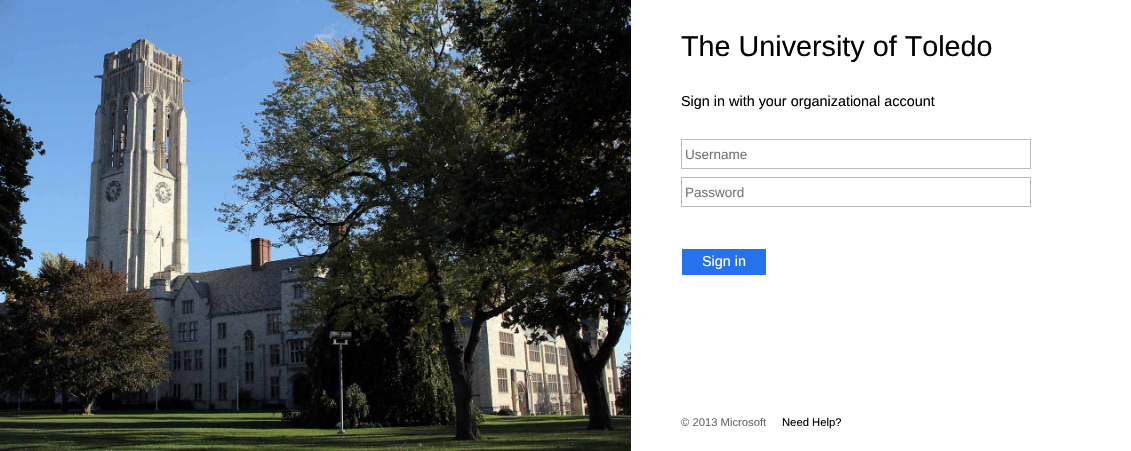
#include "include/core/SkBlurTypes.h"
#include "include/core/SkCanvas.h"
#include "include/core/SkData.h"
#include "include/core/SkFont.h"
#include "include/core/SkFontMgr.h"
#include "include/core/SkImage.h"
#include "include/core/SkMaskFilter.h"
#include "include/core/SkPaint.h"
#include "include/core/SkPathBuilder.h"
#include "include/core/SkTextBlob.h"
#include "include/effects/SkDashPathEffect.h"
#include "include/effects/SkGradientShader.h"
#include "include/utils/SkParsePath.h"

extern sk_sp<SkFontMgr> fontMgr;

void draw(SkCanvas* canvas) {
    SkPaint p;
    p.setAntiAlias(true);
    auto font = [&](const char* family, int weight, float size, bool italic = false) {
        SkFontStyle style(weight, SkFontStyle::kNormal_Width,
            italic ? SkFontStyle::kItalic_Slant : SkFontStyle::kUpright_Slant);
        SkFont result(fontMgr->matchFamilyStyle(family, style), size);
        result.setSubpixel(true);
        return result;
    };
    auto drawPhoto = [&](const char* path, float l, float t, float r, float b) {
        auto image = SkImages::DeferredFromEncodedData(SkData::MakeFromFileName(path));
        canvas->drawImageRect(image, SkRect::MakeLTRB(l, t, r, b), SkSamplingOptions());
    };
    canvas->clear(0xFFFFFFFF);
    drawPhoto("media/1.png", 0, 0, 631, 451);
    auto font1 = font("Liberation Sans", 400, 28.75f);
    p.setColor(0xFF000000);
    canvas->drawString("The University of Toledo", 681, 56, font1, p);
    auto font2 = font("Liberation Sans", 400, 14.4f);
    canvas->drawString("Sign in with your organizational account", 681, 106, font2, p);
    p.setStyle(SkPaint::kStroke_Style);
    p.setStrokeWidth(1);
    p.setColor(0xFFBABABA);
    canvas->drawRect(SkRect::MakeLTRB(681.5f, 139.5f, 1030.5f, 168.5f), p);
    auto font3 = font("Liberation Sans", 400, 13.5f);
    p.setStyle(SkPaint::kFill_Style);
    p.setColor(0xFF757575);
    canvas->drawString("Username", 685, 159, font3, p);
    p.setStyle(SkPaint::kStroke_Style);
    p.setColor(0xFFBABABA);
    canvas->drawRect(SkRect::MakeLTRB(681.5f, 177.5f, 1030.5f, 206.5f), p);
    p.setStyle(SkPaint::kFill_Style);
    p.setColor(0xFF757575);
    canvas->drawString("Password", 685, 197, font3, p);
    p.setColor(0xFF2672EC);
    canvas->drawRect(SkRect::MakeLTRB(682, 249, 766, 275), p);
    p.setColor(0xFFFFFFFF);
    canvas->drawString("Sign in", 702, 266, font2, p);
    auto font4 = font("Liberation Sans", 400, 11.25f);
    p.setColor(0xFF696969);
    canvas->drawString("© 2013 Microsoft", 681, 426, font4, p);
    p.setColor(0xFF000000);
    canvas->drawString("Need Help?", 782, 426, font4, p);
}
